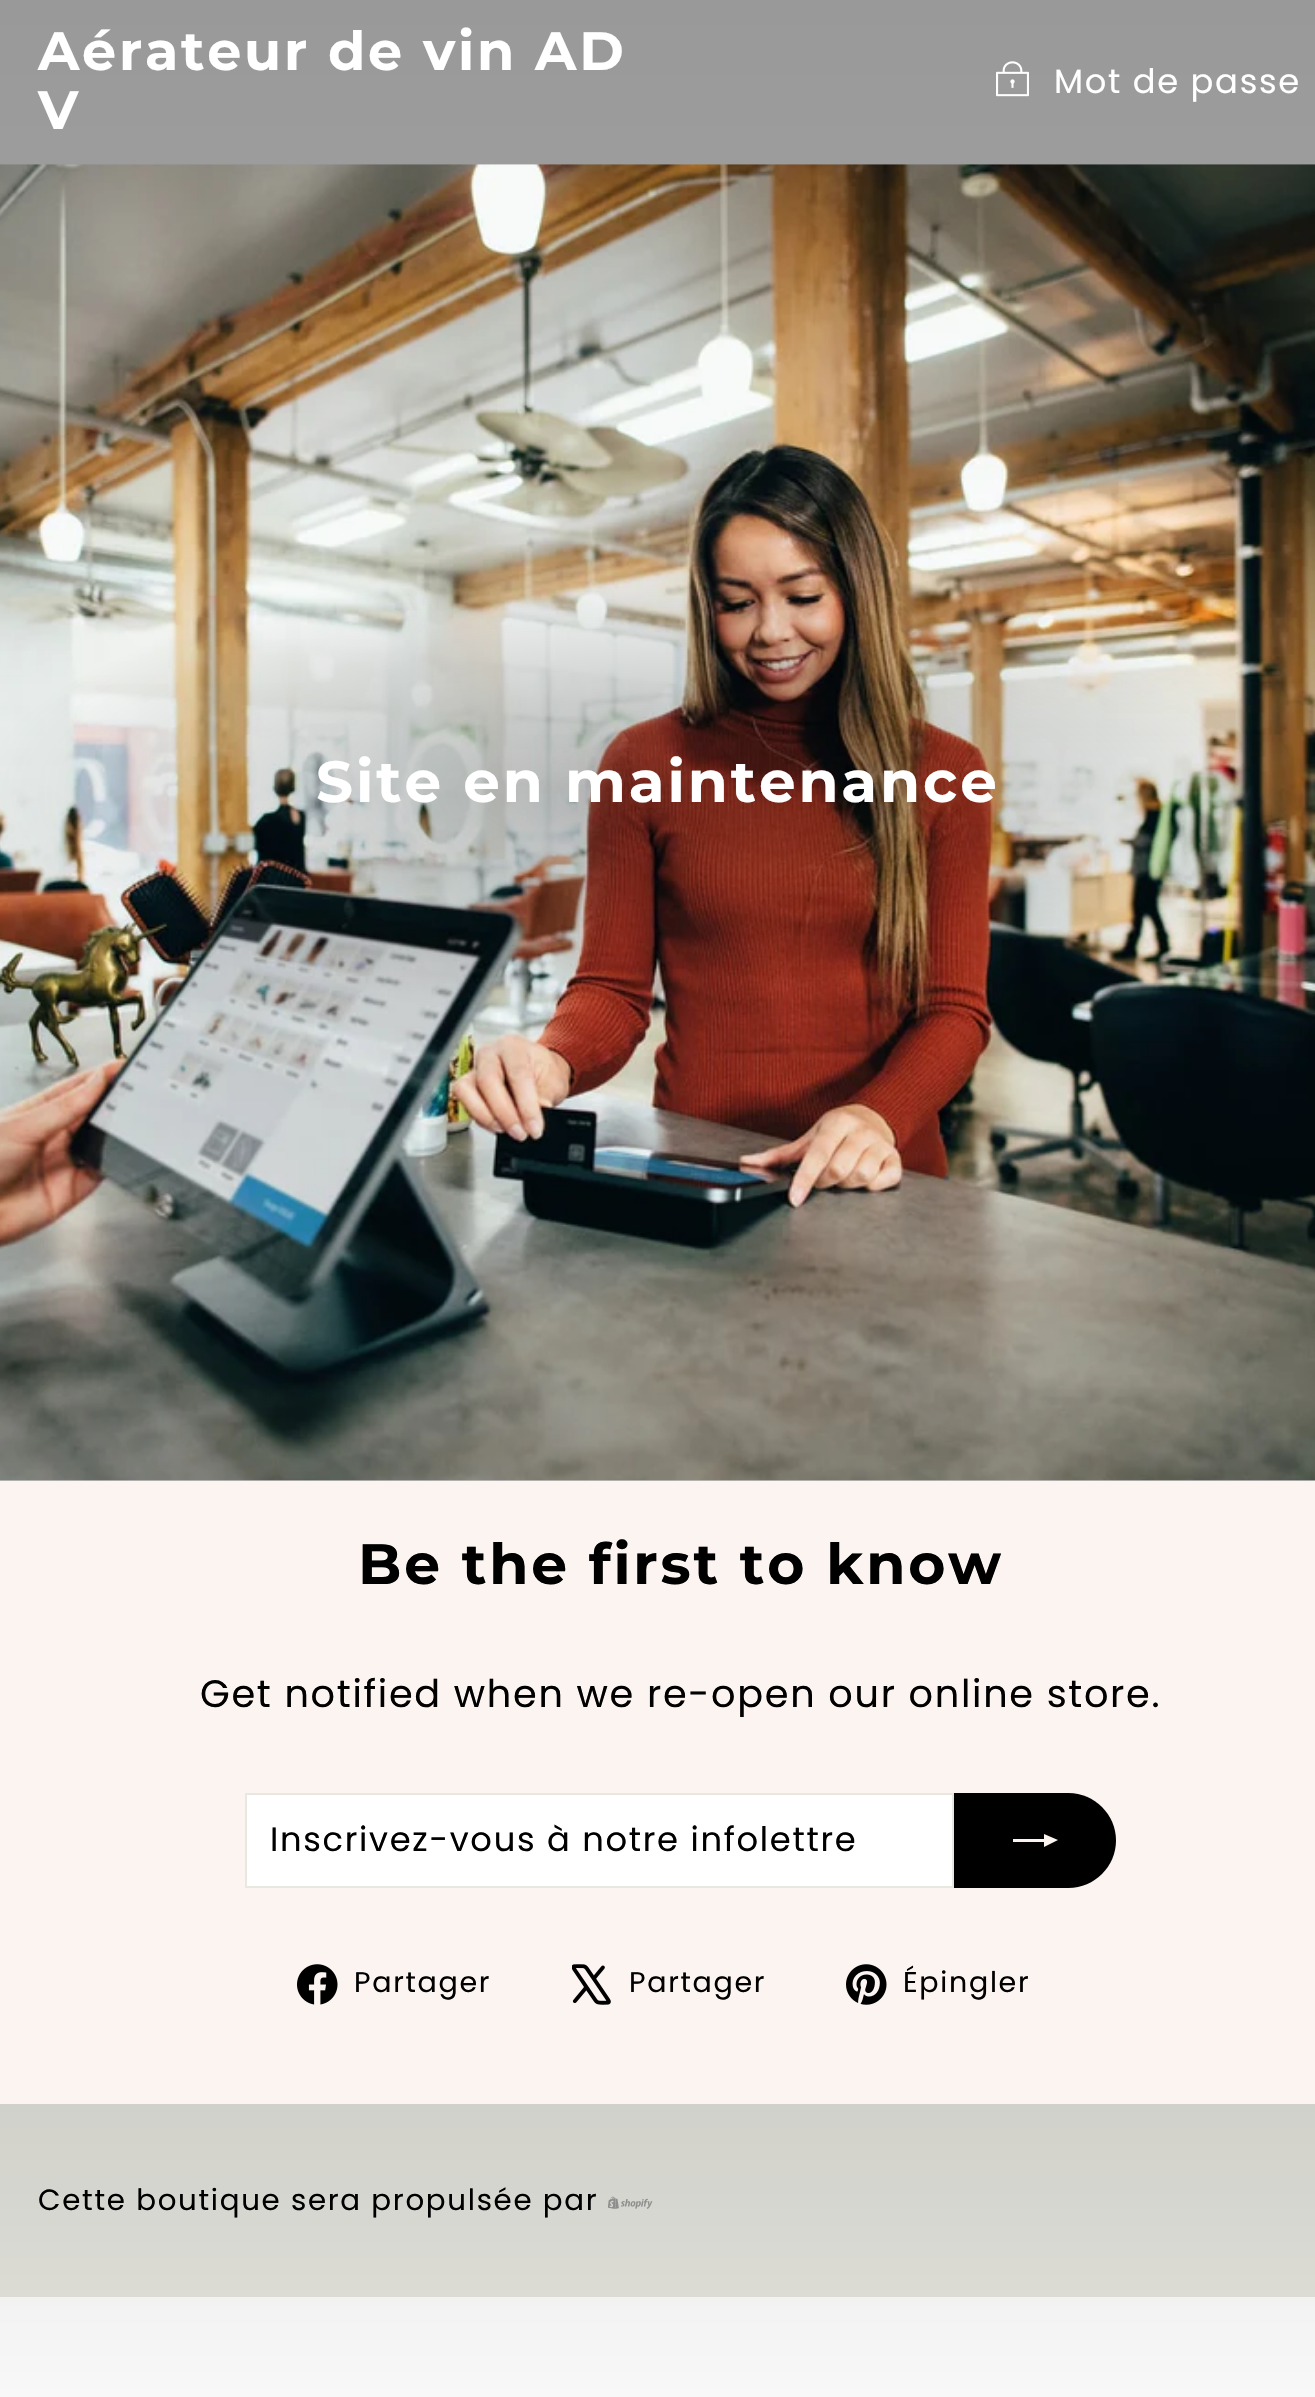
#include "include/core/SkBlurTypes.h"
#include "include/core/SkCanvas.h"
#include "include/core/SkData.h"
#include "include/core/SkFont.h"
#include "include/core/SkFontMgr.h"
#include "include/core/SkImage.h"
#include "include/core/SkMaskFilter.h"
#include "include/core/SkPaint.h"
#include "include/core/SkPathBuilder.h"
#include "include/core/SkTextBlob.h"
#include "include/effects/SkDashPathEffect.h"
#include "include/effects/SkGradientShader.h"
#include "include/utils/SkParsePath.h"

extern sk_sp<SkFontMgr> fontMgr;

void draw(SkCanvas* canvas) {
    SkPaint p;
    p.setAntiAlias(true);
    auto font = [&](const char* family, int weight, float size, bool italic = false) {
        SkFontStyle style(weight, SkFontStyle::kNormal_Width,
            italic ? SkFontStyle::kItalic_Slant : SkFontStyle::kUpright_Slant);
        SkFont result(fontMgr->matchFamilyStyle(family, style), size);
        result.setSubpixel(true);
        return result;
    };
    auto drawTracked = [&](const char* s, float x, float y, const SkFont& font, const SkPaint& ink, float letter, float word) {
        std::vector<SkGlyphID> glyphs(font.countText(s, strlen(s), SkTextEncoding::kUTF8));
        std::vector<float> xs(glyphs.size());
        font.textToGlyphs(s, strlen(s), SkTextEncoding::kUTF8, glyphs);
        font.getXPos(glyphs, xs, x);
        float extra = 0;
        for (size_t i = 0; i < glyphs.size(); i++) {
            xs[i] += extra;
            extra += letter + word * (glyphs[i] == font.unicharToGlyph(' '));
        }
        canvas->drawTextBlob(SkTextBlob::MakeFromPosHGlyphs(glyphs, xs, y, font), 0, 0, ink);
    };
    auto drawPhoto = [&](const char* path, float l, float t, float r, float b) {
        auto image = SkImages::DeferredFromEncodedData(SkData::MakeFromFileName(path));
        canvas->drawImageRect(image, SkRect::MakeLTRB(l, t, r, b), SkSamplingOptions());
    };
    canvas->clear(0xFFFFFFFF);
    p.setColor(0xFFE8E8E1);
    canvas->drawRect(SkRect::MakeLTRB(0, 2104, 1315, 2297), p);
    auto font1 = font("Poppins", 400, 29.25f);
    p.setColor(0xFF000000);
    drawTracked("Cette boutique sera propulsée par", 38, 2210, font1, p, 1.7f, 0);
    drawPhoto("media/6.png", 608, 2196, 653, 2209);
    {
        const SkColor colors[] = {0x66000000, 0x4D000000, 0x00000000};
        const float stops[] = {0, 0.5f, 1};
        const SkPoint ends[] = {{658, 0}, {658, 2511}};
        p.setShader(SkGradientShader::MakeLinear(ends, colors, stops, 3, SkTileMode::kClamp));
        p.setAlpha(255);
    }
    canvas->drawRect(SkRect::MakeLTRB(0, 0, 1315, 2397), p);
    auto font2 = font("Montserrat", 700, 54);
    p.setShader(nullptr);
    p.setColor(0xFFFFFFFF);
    drawTracked("Aérateur de vin AD", 38, 70, font2, p, 2.75f, 0);
    drawTracked("V", 38, 129, font2, p, 2.75f, 0);
    drawPhoto("media/1.png", 996, 61, 1029, 97);
    auto font3 = font("Poppins", 400, 33.75f);
    drawTracked("Mot de passe", 1054, 93, font3, p, 1.7f, 0);
    drawPhoto("media/2.png", 0, 164, 1315, 1481);
    auto font4 = font("Montserrat", 700, 58);
    drawTracked("Site en maintenance", 316, 802, font4, p, 2.9f, 0);
    p.setColor(0xFFFCF4F1);
    canvas->drawRect(SkRect::MakeLTRB(0, 1481, 1315, 2104), p);
    auto font5 = font("Montserrat", 700, 56.75f);
    p.setColor(0xFF000000);
    drawTracked("Be the first to know", 358, 1584, font5, p, 2.8f, 0);
    auto font6 = font("Poppins", 400, 38.25f);
    drawTracked("Get notified when we re-open our online store.", 200, 1707, font6, p, 1.7f, 0);
    p.setColor(0xFFFFFFFF);
    canvas->drawRect(SkRect::MakeLTRB(246, 1794, 953, 1887), p);
    p.setStyle(SkPaint::kStroke_Style);
    p.setStrokeWidth(2);
    p.setColor(0xFFE8E8E1);
    canvas->drawRect(SkRect::MakeLTRB(246, 1794, 953, 1887), p);
    p.setStyle(SkPaint::kFill_Style);
    p.setColor(0xFF000000);
    drawTracked("Inscrivez-vous à notre infolettre", 270, 1851, font3, p, 1.7f, 0);
    canvas->drawPath(SkPathBuilder().moveTo(954, 1793).lineTo(1068.5f, 1793).cubicTo(1094.5f, 1793, 1116, 1814.5f, 1116, 1840.5f).cubicTo(1116, 1866.5f, 1094.5f, 1888, 1068.5f, 1888).lineTo(954, 1888).close().detach(), p);
    canvas->save();
    canvas->clipRect(SkRect::MakeLTRB(1013, 1818, 1058, 1863));
    p.setColor(0xFFFCF4F1);
    canvas->drawPath(SkPathBuilder().moveTo(1012, 1842).lineTo(1012, 1839).lineTo(1044, 1839).lineTo(1044, 1834).lineTo(1058, 1840).lineTo(1044, 1847).lineTo(1044, 1842).close().detach(), p);
    canvas->restore();
    drawPhoto("media/3.png", 297, 1964, 338, 2005);
    auto font7 = font("Poppins", 400, 28.5f);
    p.setColor(0xFF000000);
    drawTracked("Partager", 354, 1992, font7, p, 1.7f, 0);
    drawPhoto("media/4.png", 572, 1964, 611, 2005);
    drawTracked("Partager", 629, 1992, font7, p, 1.7f, 0);
    drawPhoto("media/5.png", 846, 1964, 887, 2005);
    drawTracked("Épingler", 903, 1992, font7, p, 1.7f, 0);
}
